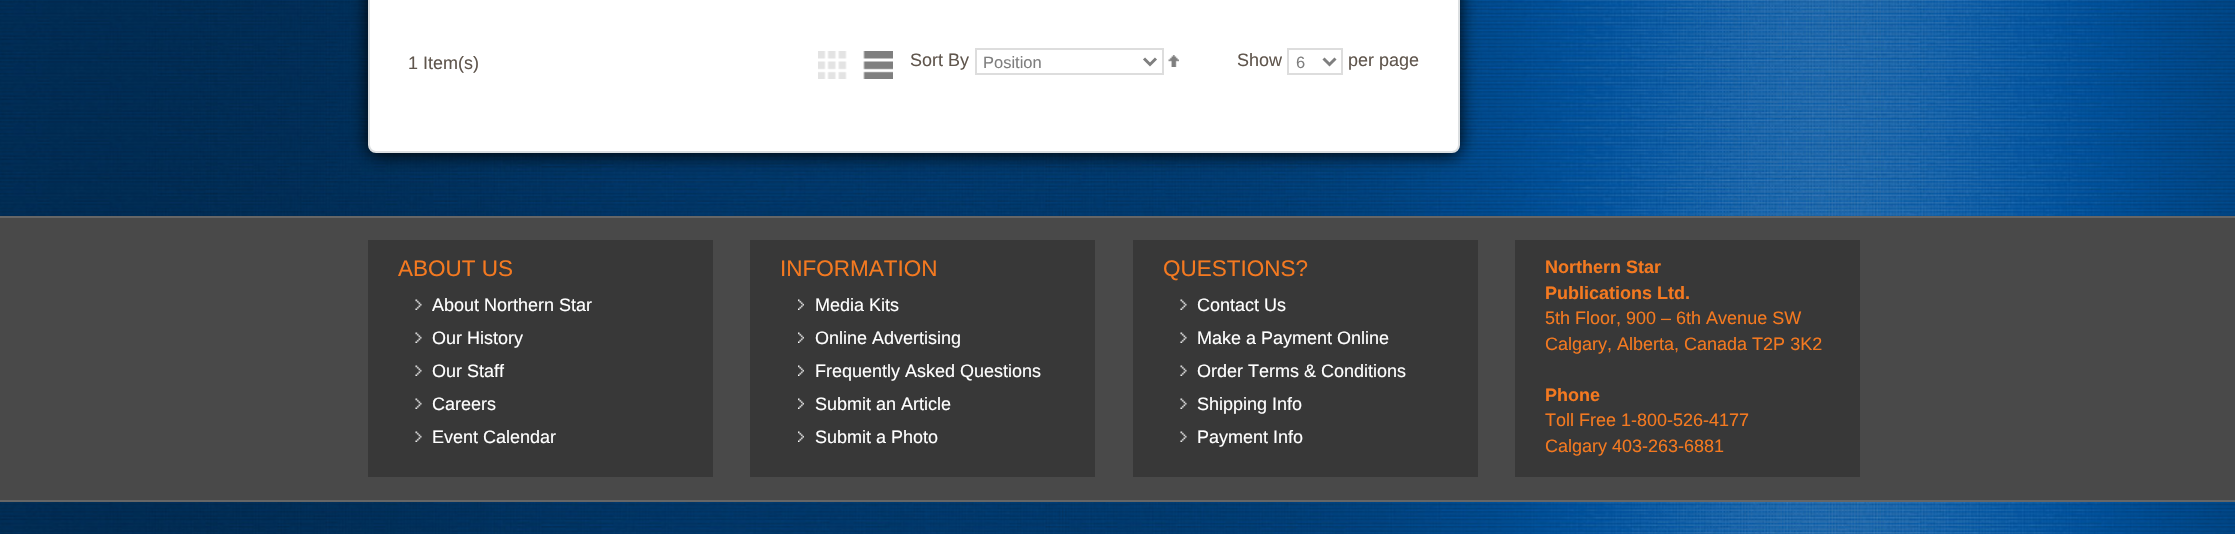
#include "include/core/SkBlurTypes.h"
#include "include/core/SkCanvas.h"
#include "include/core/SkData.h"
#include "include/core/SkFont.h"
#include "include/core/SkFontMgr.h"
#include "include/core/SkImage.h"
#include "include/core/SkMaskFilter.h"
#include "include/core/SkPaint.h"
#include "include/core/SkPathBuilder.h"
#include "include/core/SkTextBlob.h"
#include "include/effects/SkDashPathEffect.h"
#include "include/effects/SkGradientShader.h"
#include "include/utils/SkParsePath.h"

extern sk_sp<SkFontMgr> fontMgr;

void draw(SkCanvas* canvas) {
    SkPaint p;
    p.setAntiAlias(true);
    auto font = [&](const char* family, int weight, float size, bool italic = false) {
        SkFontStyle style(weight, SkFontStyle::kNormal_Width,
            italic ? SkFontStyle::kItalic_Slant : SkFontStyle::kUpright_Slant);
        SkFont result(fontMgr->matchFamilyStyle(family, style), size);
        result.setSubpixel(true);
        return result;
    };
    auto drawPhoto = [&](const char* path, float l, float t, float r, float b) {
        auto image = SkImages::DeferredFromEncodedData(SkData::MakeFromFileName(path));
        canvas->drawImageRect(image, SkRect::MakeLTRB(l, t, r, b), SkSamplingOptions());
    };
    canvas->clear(0xFFFFFFFF);
    drawPhoto("media/1.png", 0, 0, 2235, 534);
    p.setColor(0xFF000000);
    p.setMaskFilter(SkMaskFilter::MakeBlur(kNormal_SkBlurStyle, 9));
    canvas->drawRoundRect(SkRect::MakeLTRB(368, -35, 1460, 155), 8, 8, p);
    p.setMaskFilter(nullptr);
    p.setColor(0xFFFFFFFF);
    canvas->drawRoundRect(SkRect::MakeLTRB(369, -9, 1459, 152), 7, 7, p);
    p.setStyle(SkPaint::kStroke_Style);
    p.setStrokeWidth(2);
    p.setColor(0xFFDCDFE1);
    canvas->drawRoundRect(SkRect::MakeLTRB(369, -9, 1459, 152), 7, 7, p);
    auto font1 = font("Liberation Sans", 400, 18);
    p.setStyle(SkPaint::kFill_Style);
    p.setColor(0xFF60564D);
    canvas->drawString("1 Item(s)", 408, 69, font1, p);
    canvas->drawString("Show", 1237, 66, font1, p);
    p.setStyle(SkPaint::kStroke_Style);
    p.setColor(0xFFDDDDDD);
    canvas->drawRect(SkRect::MakeLTRB(1288, 49, 1342, 74), p);
    p.setStrokeWidth(3);
    p.setColor(0xFF7F7F7F);
    canvas->drawPath(SkPathBuilder().moveTo(1323.5f, 58.5f).lineTo(1329.5f, 64.5f).lineTo(1335.5f, 58.5f).detach(), p);
    auto font2 = font("Liberation Sans", 400, 16.5f);
    p.setStyle(SkPaint::kFill_Style);
    canvas->drawString("6", 1296, 68, font2, p);
    p.setColor(0xFF60564D);
    canvas->drawString("per page", 1348, 66, font1, p);
    drawPhoto("media/2.png", 818, 51, 847, 79);
    drawPhoto("media/3.png", 863, 51, 893, 79);
    canvas->drawString("Sort By", 910, 66, font1, p);
    p.setStyle(SkPaint::kStroke_Style);
    p.setStrokeWidth(2);
    p.setColor(0xFFDDDDDD);
    canvas->drawRect(SkRect::MakeLTRB(976, 49, 1163, 74), p);
    p.setStrokeWidth(3);
    p.setColor(0xFF7F7F7F);
    canvas->drawPath(SkPathBuilder().moveTo(1144, 58.5f).lineTo(1150, 64.5f).lineTo(1156, 58.5f).detach(), p);
    p.setStyle(SkPaint::kFill_Style);
    canvas->drawString("Position", 983, 68, font2, p);
    drawPhoto("media/4.png", 1168, 55, 1179, 67);
    {
        const struct { float l, t, r, b; SkColor color; } items[] = {
            {0, 218, 2235, 500, 0xFF494949},
            {0, 216, 2235, 218, 0xFF666666},
            {0, 500, 2235, 502, 0xFF666666},
            {368, 240, 713, 477, 0xFF383838},
        };
        for (auto [l, t, r, b, color] : items) {
            p.setColor(color);
            canvas->drawRect(SkRect::MakeLTRB(l, t, r, b), p);
        }
    }
    auto font3 = font("Liberation Sans", 400, 22.5f);
    p.setColor(0xFFF47920);
    canvas->drawString("ABOUT US", 398, 276, font3, p);
    drawPhoto("media/5.png", 415, 299, 422, 310);
    p.setColor(0xFFFFFFFF);
    canvas->drawString("About Northern Star", 432, 311, font1, p);
    drawPhoto("media/5.png", 415, 332, 422, 343);
    canvas->drawString("Our History", 432, 344, font1, p);
    drawPhoto("media/5.png", 415, 365, 422, 376);
    canvas->drawString("Our Staff", 432, 377, font1, p);
    drawPhoto("media/5.png", 415, 398, 422, 409);
    canvas->drawString("Careers", 432, 410, font1, p);
    drawPhoto("media/5.png", 415, 431, 422, 442);
    canvas->drawString("Event Calendar", 432, 443, font1, p);
    p.setColor(0xFF383838);
    canvas->drawRect(SkRect::MakeLTRB(750, 240, 1095, 477), p);
    p.setColor(0xFFF47920);
    canvas->drawString("INFORMATION", 780, 276, font3, p);
    drawPhoto("media/6.png", 798, 299, 804, 310);
    p.setColor(0xFFFFFFFF);
    canvas->drawString("Media Kits", 815, 311, font1, p);
    drawPhoto("media/6.png", 798, 332, 804, 343);
    canvas->drawString("Online Advertising", 815, 344, font1, p);
    drawPhoto("media/6.png", 798, 365, 804, 376);
    canvas->drawString("Frequently Asked Questions", 815, 377, font1, p);
    drawPhoto("media/6.png", 798, 398, 804, 409);
    canvas->drawString("Submit an Article", 815, 410, font1, p);
    drawPhoto("media/6.png", 798, 431, 804, 442);
    canvas->drawString("Submit a Photo", 815, 443, font1, p);
    p.setColor(0xFF383838);
    canvas->drawRect(SkRect::MakeLTRB(1133, 240, 1478, 477), p);
    p.setColor(0xFFF47920);
    canvas->drawString("QUESTIONS?", 1163, 276, font3, p);
    drawPhoto("media/5.png", 1180, 299, 1187, 310);
    p.setColor(0xFFFFFFFF);
    canvas->drawString("Contact Us", 1197, 311, font1, p);
    drawPhoto("media/5.png", 1180, 332, 1187, 343);
    canvas->drawString("Make a Payment Online", 1197, 344, font1, p);
    drawPhoto("media/5.png", 1180, 365, 1187, 376);
    canvas->drawString("Order Terms & Conditions", 1197, 377, font1, p);
    drawPhoto("media/5.png", 1180, 398, 1187, 409);
    canvas->drawString("Shipping Info", 1197, 410, font1, p);
    drawPhoto("media/5.png", 1180, 431, 1187, 442);
    canvas->drawString("Payment Info", 1197, 443, font1, p);
    p.setColor(0xFF383838);
    canvas->drawRect(SkRect::MakeLTRB(1515, 240, 1860, 477), p);
    auto font4 = font("Liberation Sans", 700, 18);
    p.setColor(0xFFF47920);
    canvas->drawString("Northern Star", 1545, 273, font4, p);
    canvas->drawString("Publications Ltd.", 1545, 299, font4, p);
    canvas->drawString("5th Floor, 900 – 6th Avenue SW", 1545, 324, font1, p);
    canvas->drawString("Calgary, Alberta, Canada T2P 3K2", 1545, 350, font1, p);
    canvas->drawString("Phone", 1545, 401, font4, p);
    canvas->drawString("Toll Free 1-800-526-4177", 1545, 426, font1, p);
    canvas->drawString("Calgary 403-263-6881", 1545, 452, font1, p);
}
